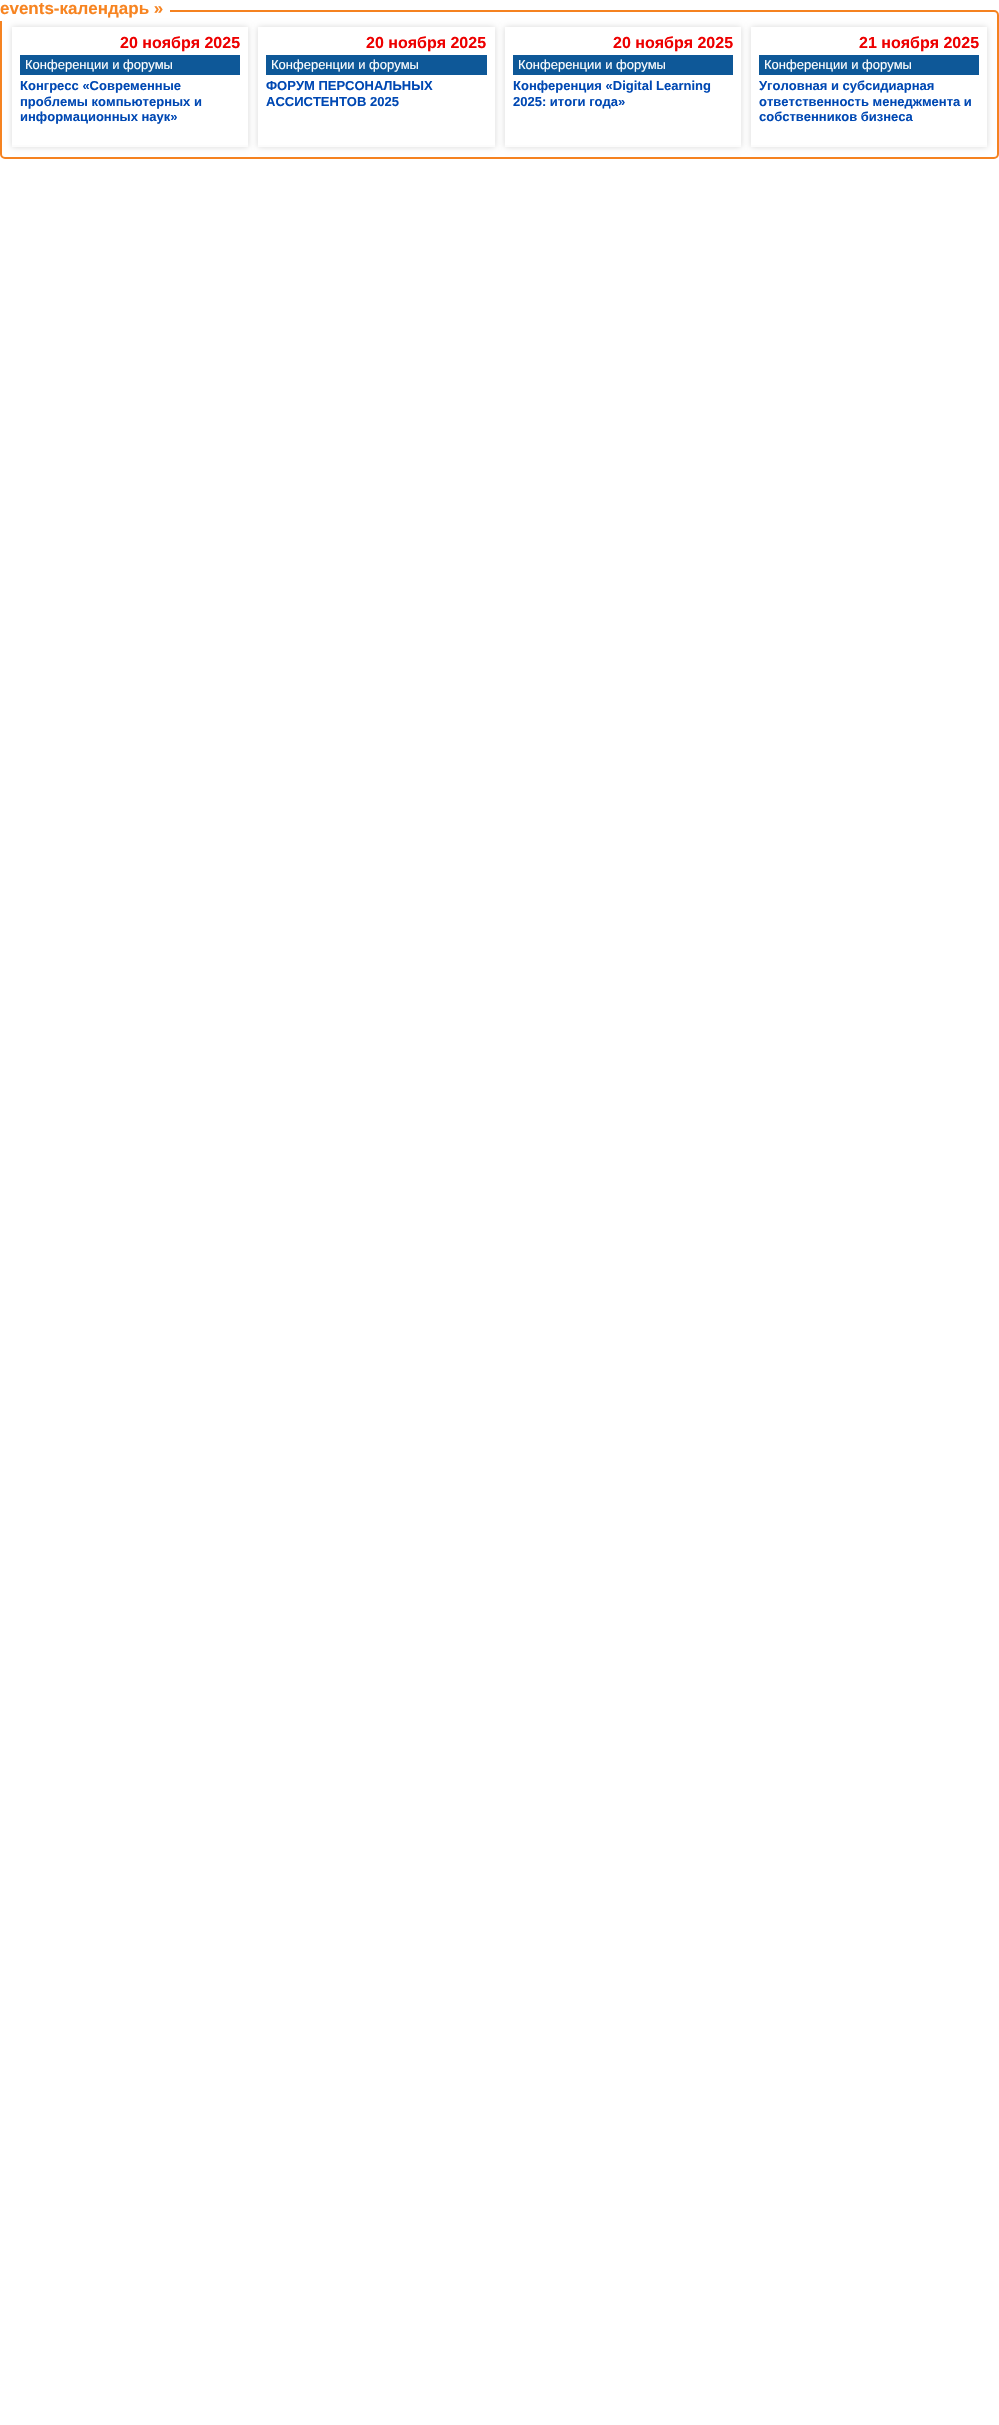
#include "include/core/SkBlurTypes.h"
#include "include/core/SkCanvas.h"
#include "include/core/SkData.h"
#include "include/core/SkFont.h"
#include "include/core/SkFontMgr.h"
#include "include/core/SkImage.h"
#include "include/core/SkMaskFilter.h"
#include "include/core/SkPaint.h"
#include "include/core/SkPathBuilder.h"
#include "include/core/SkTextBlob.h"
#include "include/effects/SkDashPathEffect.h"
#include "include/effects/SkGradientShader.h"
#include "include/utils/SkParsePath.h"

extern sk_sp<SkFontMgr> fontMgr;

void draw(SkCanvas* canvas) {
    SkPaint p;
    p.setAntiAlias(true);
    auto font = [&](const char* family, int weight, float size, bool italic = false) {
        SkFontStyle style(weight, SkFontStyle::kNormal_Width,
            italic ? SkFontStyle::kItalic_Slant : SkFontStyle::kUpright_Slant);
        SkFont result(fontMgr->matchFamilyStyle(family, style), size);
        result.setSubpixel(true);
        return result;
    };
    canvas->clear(0xFFFFFFFF);
    p.setStyle(SkPaint::kStroke_Style);
    p.setStrokeWidth(2);
    p.setColor(0xFFF58220);
    canvas->drawRoundRect(SkRect::MakeLTRB(1, 11, 998, 158), 4, 4, p);
    p.setStyle(SkPaint::kFill_Style);
    p.setColor(0xFFFFFFFF);
    canvas->drawRect(SkRect::MakeLTRB(0, 10, 170, 21), p);
    auto font1 = font("Liberation Sans", 700, 17);
    p.setColor(0xFFF78421);
    canvas->drawString("events-календарь »", 0, 14, font1, p);
    canvas->save();
    canvas->clipPath(SkPathBuilder(SkPathFillType::kEvenOdd).moveTo(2, 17).lineTo(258, 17).lineTo(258, 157).lineTo(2, 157).close().moveTo(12, 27).lineTo(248, 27).lineTo(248, 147).lineTo(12, 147).close().detach(), true);
    p.setColor(0x26000000);
    p.setMaskFilter(SkMaskFilter::MakeBlur(kNormal_SkBlurStyle, 3));
    canvas->drawRect(SkRect::MakeLTRB(12, 27, 248, 147), p);
    p.setMaskFilter(nullptr);
    canvas->restore();
    auto font2 = font("Liberation Sans", 700, 16);
    p.setColor(0xFFED0000);
    canvas->drawString("20 ноября 2025", 120, 48, font2, p);
    p.setColor(0xFF0E5898);
    canvas->drawRect(SkRect::MakeLTRB(20, 55, 240, 75), p);
    auto font3 = font("Liberation Sans", 400, 13);
    p.setColor(0xFFFFFFFF);
    canvas->drawString("Конференции и форумы", 25, 69, font3, p);
    auto font4 = font("Liberation Sans", 700, 13);
    p.setColor(0xFF0048B3);
    {
        const struct { const char* s; float x, y; } items[] = {
            {"Конгресс «Современные", 20, 90},
            {"проблемы компьютерных и", 20, 106},
            {"информационных наук»", 20, 121},
        };
        for (auto [s, x, y] : items) {
            canvas->drawString(s, x, y, font4, p);
        }
    }
    {
        const SkColor colors[] = {0xFFFFFFFF, 0xFFFDFDFD, 0xFFFCFCFC};
        const float stops[] = {0, 0.76f, 1};
        const SkPoint ends[] = {{130, 127}, {130, 147}};
        p.setShader(SkGradientShader::MakeLinear(ends, colors, stops, 3, SkTileMode::kClamp));
        p.setAlpha(255);
    }
    canvas->drawRect(SkRect::MakeLTRB(12, 145, 248, 147), p);
    canvas->save();
    canvas->clipPath(SkPathBuilder(SkPathFillType::kEvenOdd).moveTo(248, 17).lineTo(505, 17).lineTo(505, 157).lineTo(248, 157).close().moveTo(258, 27).lineTo(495, 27).lineTo(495, 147).lineTo(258, 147).close().detach(), true);
    p.setShader(nullptr);
    p.setColor(0x26000000);
    p.setMaskFilter(SkMaskFilter::MakeBlur(kNormal_SkBlurStyle, 3));
    canvas->drawRect(SkRect::MakeLTRB(258, 27, 495, 147), p);
    p.setMaskFilter(nullptr);
    canvas->restore();
    p.setColor(0xFFED0000);
    canvas->drawString("20 ноября 2025", 366, 48, font2, p);
    p.setColor(0xFF0E5898);
    canvas->drawRect(SkRect::MakeLTRB(266, 55, 487, 75), p);
    p.setColor(0xFFFFFFFF);
    canvas->drawString("Конференции и форумы", 271, 69, font3, p);
    p.setColor(0xFF0048B3);
    canvas->drawString("ФОРУМ ПЕРСОНАЛЬНЫХ", 266, 90, font4, p);
    canvas->drawString("АССИСТЕНТОВ 2025", 266, 106, font4, p);
    {
        const SkColor colors[] = {0xFFFFFFFF, 0xFFFDFDFD, 0xFFFCFCFC};
        const float stops[] = {0, 0.76f, 1};
        const SkPoint ends[] = {{377, 127}, {377, 147}};
        p.setShader(SkGradientShader::MakeLinear(ends, colors, stops, 3, SkTileMode::kClamp));
        p.setAlpha(255);
    }
    canvas->drawRect(SkRect::MakeLTRB(258, 145, 495, 147), p);
    canvas->save();
    canvas->clipPath(SkPathBuilder(SkPathFillType::kEvenOdd).moveTo(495, 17).lineTo(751, 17).lineTo(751, 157).lineTo(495, 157).close().moveTo(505, 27).lineTo(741, 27).lineTo(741, 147).lineTo(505, 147).close().detach(), true);
    p.setShader(nullptr);
    p.setColor(0x26000000);
    p.setMaskFilter(SkMaskFilter::MakeBlur(kNormal_SkBlurStyle, 3));
    canvas->drawRect(SkRect::MakeLTRB(505, 27, 741, 147), p);
    p.setMaskFilter(nullptr);
    canvas->restore();
    p.setColor(0xFFED0000);
    canvas->drawString("20 ноября 2025", 613, 48, font2, p);
    p.setColor(0xFF0E5898);
    canvas->drawRect(SkRect::MakeLTRB(513, 55, 733, 75), p);
    p.setColor(0xFFFFFFFF);
    canvas->drawString("Конференции и форумы", 518, 69, font3, p);
    p.setColor(0xFF0048B3);
    canvas->drawString("Конференция «Digital Learning", 513, 90, font4, p);
    canvas->drawString("2025: итоги года»", 513, 106, font4, p);
    {
        const SkColor colors[] = {0xFFFFFFFF, 0xFFFDFDFD, 0xFFFCFCFC};
        const float stops[] = {0, 0.76f, 1};
        const SkPoint ends[] = {{623, 127}, {623, 147}};
        p.setShader(SkGradientShader::MakeLinear(ends, colors, stops, 3, SkTileMode::kClamp));
        p.setAlpha(255);
    }
    canvas->drawRect(SkRect::MakeLTRB(505, 145, 741, 147), p);
    canvas->save();
    canvas->clipPath(SkPathBuilder(SkPathFillType::kEvenOdd).moveTo(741, 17).lineTo(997, 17).lineTo(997, 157).lineTo(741, 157).close().moveTo(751, 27).lineTo(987, 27).lineTo(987, 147).lineTo(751, 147).close().detach(), true);
    p.setShader(nullptr);
    p.setColor(0x26000000);
    p.setMaskFilter(SkMaskFilter::MakeBlur(kNormal_SkBlurStyle, 3));
    canvas->drawRect(SkRect::MakeLTRB(751, 27, 987, 147), p);
    p.setMaskFilter(nullptr);
    canvas->restore();
    p.setColor(0xFFED0000);
    canvas->drawString("21 ноября 2025", 859, 48, font2, p);
    p.setColor(0xFF0E5898);
    canvas->drawRect(SkRect::MakeLTRB(759, 55, 979, 75), p);
    p.setColor(0xFFFFFFFF);
    canvas->drawString("Конференции и форумы", 764, 69, font3, p);
    p.setColor(0xFF0048B3);
    {
        const struct { const char* s; float x, y; } items[] = {
            {"Уголовная и субсидиарная", 759, 90},
            {"ответственность менеджмента и", 759, 106},
            {"собственников бизнеса", 759, 121},
        };
        for (auto [s, x, y] : items) {
            canvas->drawString(s, x, y, font4, p);
        }
    }
    {
        const SkColor colors[] = {0xFFFFFFFF, 0xFFFDFDFD, 0xFFFCFCFC};
        const float stops[] = {0, 0.76f, 1};
        const SkPoint ends[] = {{869, 127}, {869, 147}};
        p.setShader(SkGradientShader::MakeLinear(ends, colors, stops, 3, SkTileMode::kClamp));
        p.setAlpha(255);
    }
    canvas->drawRect(SkRect::MakeLTRB(751, 145, 987, 147), p);
}
